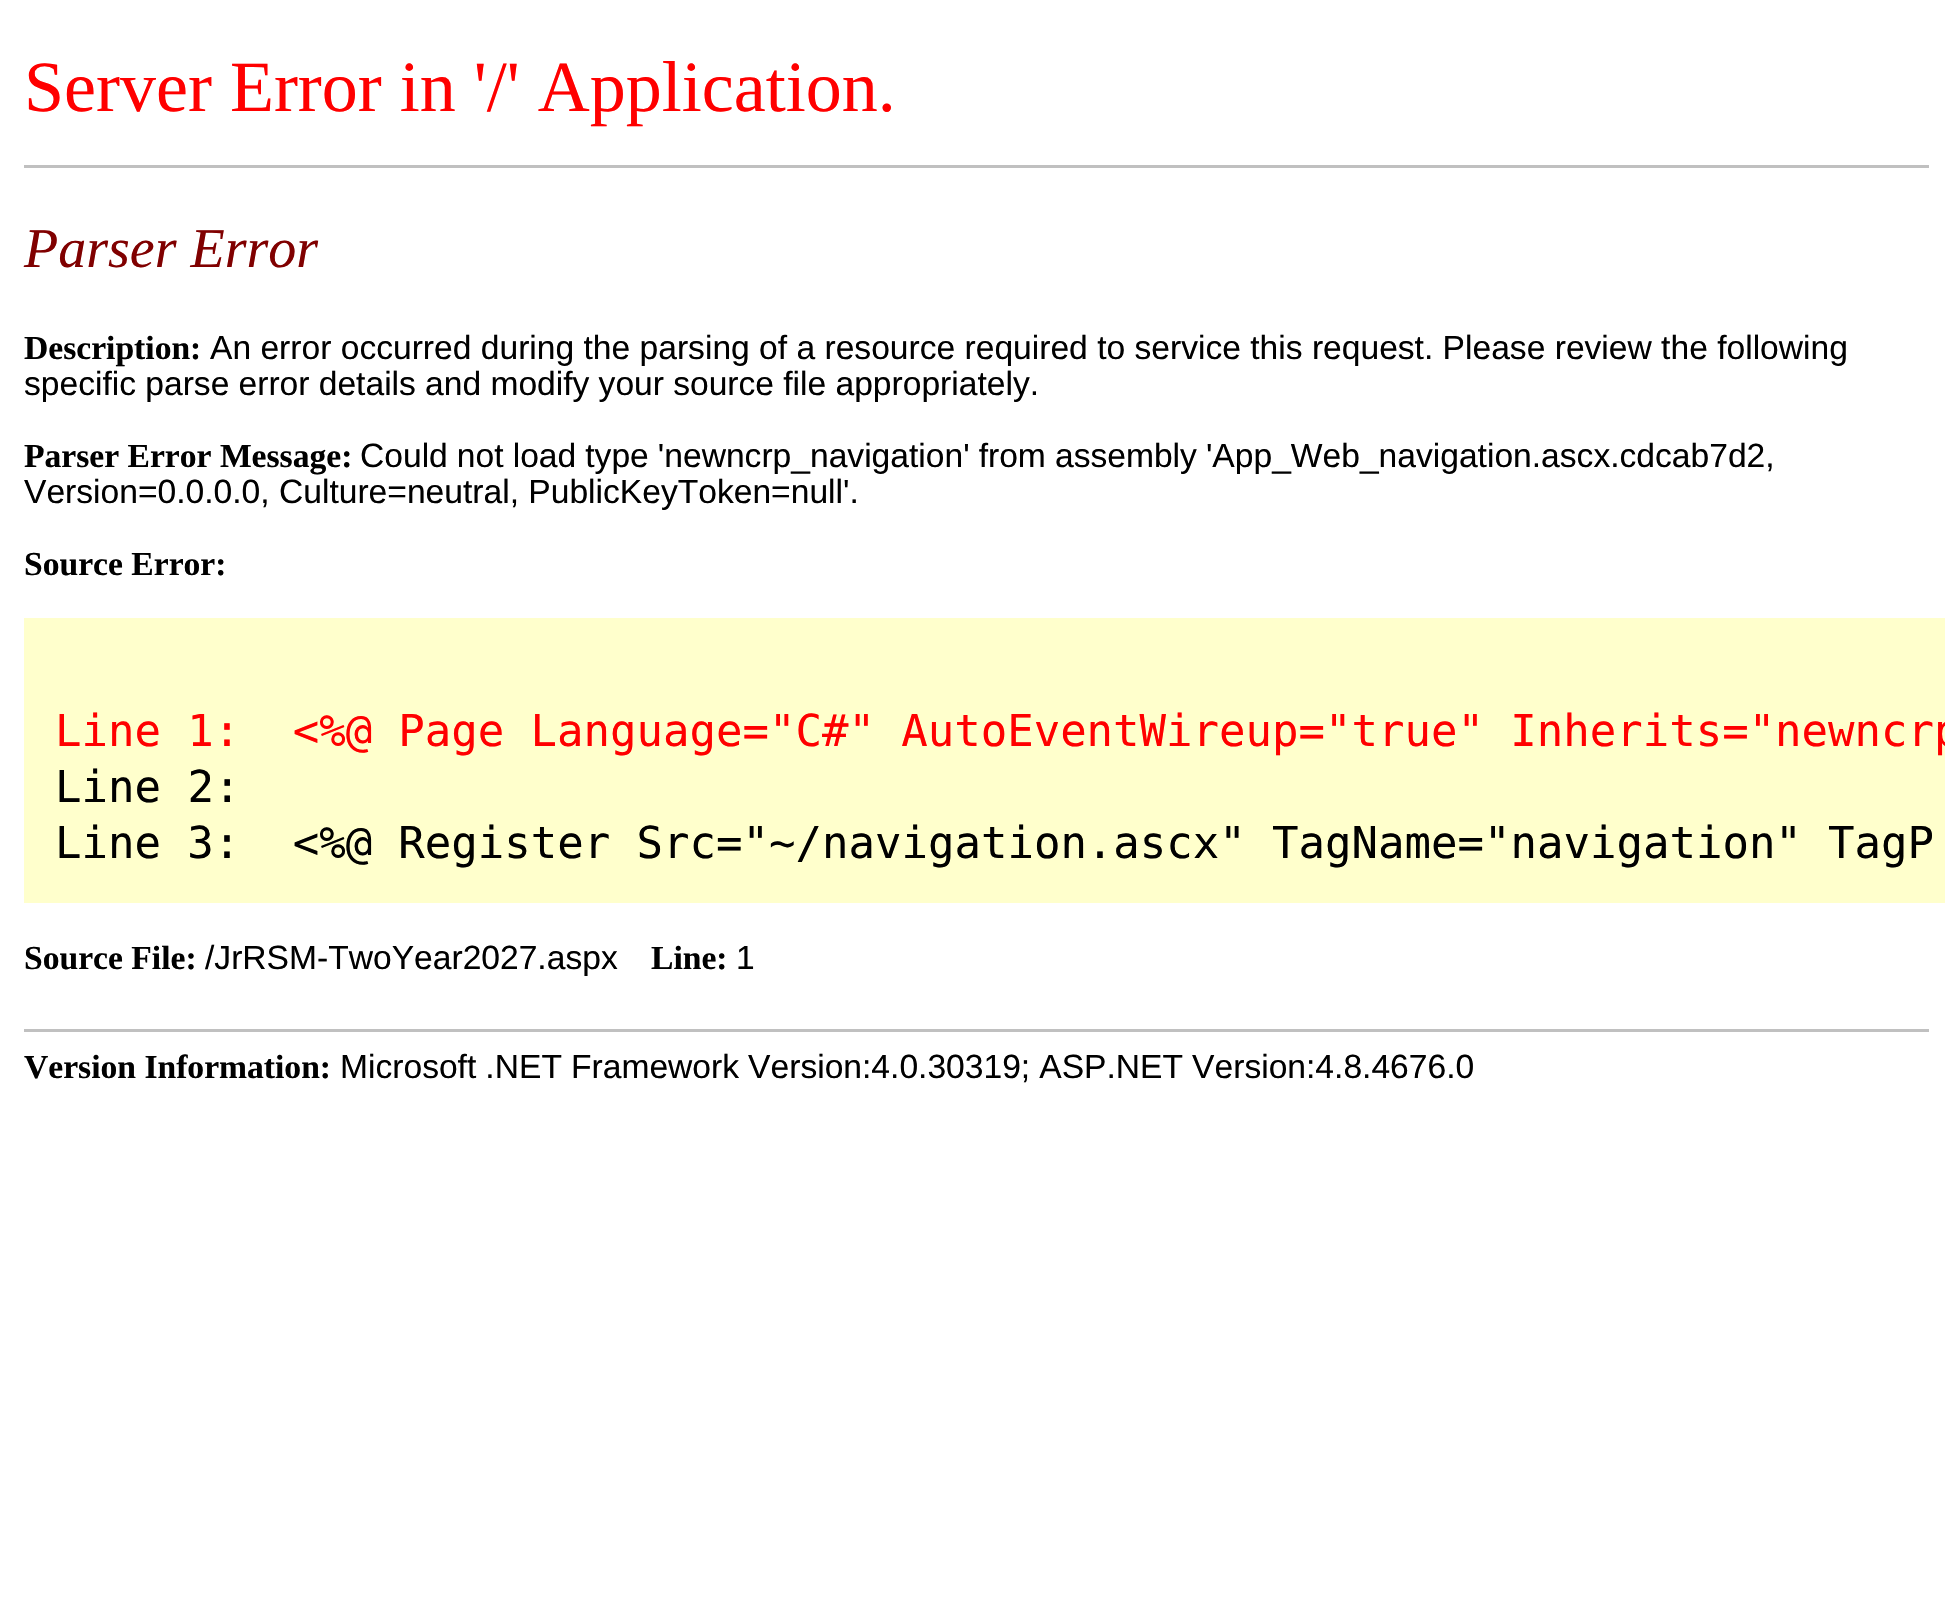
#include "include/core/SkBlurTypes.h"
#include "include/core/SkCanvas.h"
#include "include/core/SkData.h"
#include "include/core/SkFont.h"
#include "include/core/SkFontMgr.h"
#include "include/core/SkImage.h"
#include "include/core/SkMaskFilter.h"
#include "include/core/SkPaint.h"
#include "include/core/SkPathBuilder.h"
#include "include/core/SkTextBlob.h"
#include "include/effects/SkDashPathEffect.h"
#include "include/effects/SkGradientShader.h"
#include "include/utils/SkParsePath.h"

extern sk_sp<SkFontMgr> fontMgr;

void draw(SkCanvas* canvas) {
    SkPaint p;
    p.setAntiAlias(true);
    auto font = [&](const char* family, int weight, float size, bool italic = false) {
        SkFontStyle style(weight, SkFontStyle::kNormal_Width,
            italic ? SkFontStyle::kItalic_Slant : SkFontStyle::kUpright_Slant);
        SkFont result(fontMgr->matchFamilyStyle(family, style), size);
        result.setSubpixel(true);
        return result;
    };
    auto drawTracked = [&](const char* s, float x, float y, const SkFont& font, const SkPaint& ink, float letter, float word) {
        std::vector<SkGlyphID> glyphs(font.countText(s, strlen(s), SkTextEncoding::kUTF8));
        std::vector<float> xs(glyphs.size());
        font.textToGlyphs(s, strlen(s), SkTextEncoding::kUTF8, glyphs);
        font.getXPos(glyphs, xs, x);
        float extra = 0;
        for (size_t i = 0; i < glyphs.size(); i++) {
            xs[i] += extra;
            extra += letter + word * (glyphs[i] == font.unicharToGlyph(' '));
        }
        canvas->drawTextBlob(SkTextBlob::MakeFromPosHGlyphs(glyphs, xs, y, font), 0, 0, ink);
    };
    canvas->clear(0xFFFFFFFF);
    auto font1 = font("Liberation Serif", 400, 72);
    p.setColor(0xFFFF0000);
    canvas->drawString("Server Error in '/' Application.", 24, 111, font1, p);
    p.setColor(0xFFC0C0C0);
    canvas->drawRect(SkRect::MakeLTRB(24, 165, 1929, 168), p);
    auto font2 = font("Liberation Serif", 400, 56, true);
    p.setColor(0xFF800000);
    canvas->drawString("Parser Error", 24, 267, font2, p);
    auto font3 = font("Liberation Serif", 700, 33.6f);
    p.setColor(0xFF000000);
    canvas->drawString("Description:", 24, 359, font3, p);
    auto font4 = font("Liberation Sans", 400, 33.6f);
    canvas->drawString("An error occurred during the parsing of a resource required to service this request. Please review the following", 210, 359, font4, p);
    drawTracked("specific parse error details and modify your source file appropriately.", 24, 395, font4, p, 0, -0.1f);
    canvas->drawString("Parser Error Message:", 24, 467, font3, p);
    drawTracked("Could not load type 'newncrp_navigation' from assembly 'App_Web_navigation.ascx.cdcab7d2,", 360, 467, font4, p, 0, -0.25f);
    canvas->drawString("Version=0.0.0.0, Culture=neutral, PublicKeyToken=null'.", 24, 503, font4, p);
    canvas->drawString("Source Error:", 24, 575, font3, p);
    p.setColor(0xFFFFFFCC);
    canvas->drawRect(SkRect::MakeLTRB(24, 618, 1945, 903), p);
    auto font5 = font("DejaVu Sans Mono", 400, 44);
    p.setColor(0xFFFF0000);
    drawTracked("Line 1:  <%@ Page Language=\"C#\" AutoEventWireup=\"true\" Inherits=\"newncrp", 55, 746, font5, p, 0, -0.25f);
    p.setColor(0xFF000000);
    canvas->drawString("Line 2:", 55, 802, font5, p);
    drawTracked("Line 3:  <%@ Register Src=\"~/navigation.ascx\" TagName=\"navigation\" TagP", 55, 858, font5, p, 0, -0.25f);
    canvas->drawString("Source File:", 24, 969, font3, p);
    canvas->drawString("/JrRSM-TwoYear2027.aspx", 205, 969, font4, p);
    canvas->drawString("Line:", 651, 969, font3, p);
    canvas->drawString("1", 736, 969, font4, p);
    p.setColor(0xFFC0C0C0);
    canvas->drawRect(SkRect::MakeLTRB(24, 1029, 1929, 1032), p);
    p.setColor(0xFF000000);
    canvas->drawString("Version Information:", 24, 1078, font3, p);
    drawTracked("Microsoft .NET Framework Version:4.0.30319; ASP.NET Version:4.8.4676.0", 340, 1078, font4, p, 0, -0.25f);
}
